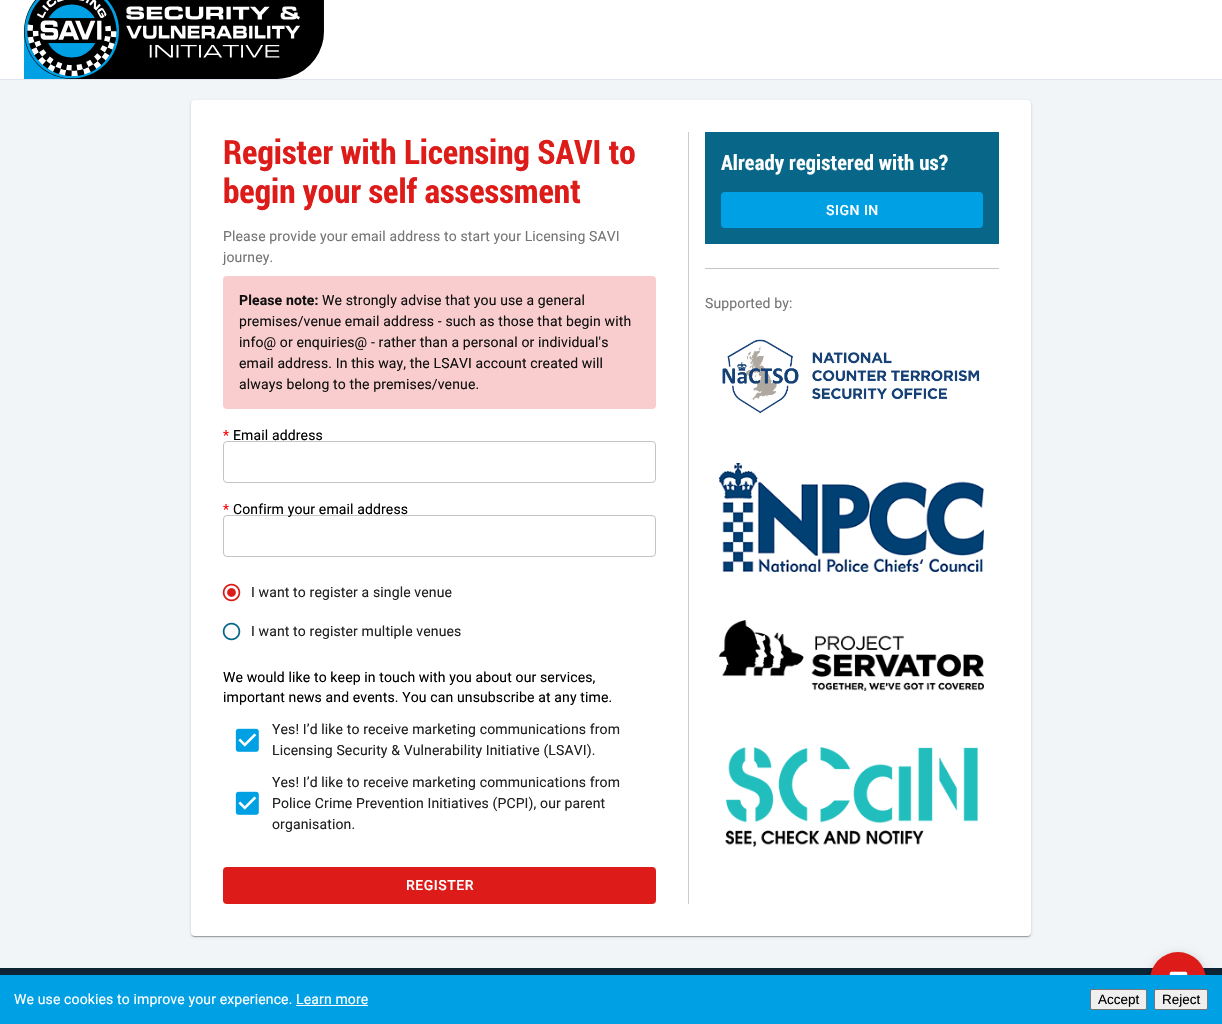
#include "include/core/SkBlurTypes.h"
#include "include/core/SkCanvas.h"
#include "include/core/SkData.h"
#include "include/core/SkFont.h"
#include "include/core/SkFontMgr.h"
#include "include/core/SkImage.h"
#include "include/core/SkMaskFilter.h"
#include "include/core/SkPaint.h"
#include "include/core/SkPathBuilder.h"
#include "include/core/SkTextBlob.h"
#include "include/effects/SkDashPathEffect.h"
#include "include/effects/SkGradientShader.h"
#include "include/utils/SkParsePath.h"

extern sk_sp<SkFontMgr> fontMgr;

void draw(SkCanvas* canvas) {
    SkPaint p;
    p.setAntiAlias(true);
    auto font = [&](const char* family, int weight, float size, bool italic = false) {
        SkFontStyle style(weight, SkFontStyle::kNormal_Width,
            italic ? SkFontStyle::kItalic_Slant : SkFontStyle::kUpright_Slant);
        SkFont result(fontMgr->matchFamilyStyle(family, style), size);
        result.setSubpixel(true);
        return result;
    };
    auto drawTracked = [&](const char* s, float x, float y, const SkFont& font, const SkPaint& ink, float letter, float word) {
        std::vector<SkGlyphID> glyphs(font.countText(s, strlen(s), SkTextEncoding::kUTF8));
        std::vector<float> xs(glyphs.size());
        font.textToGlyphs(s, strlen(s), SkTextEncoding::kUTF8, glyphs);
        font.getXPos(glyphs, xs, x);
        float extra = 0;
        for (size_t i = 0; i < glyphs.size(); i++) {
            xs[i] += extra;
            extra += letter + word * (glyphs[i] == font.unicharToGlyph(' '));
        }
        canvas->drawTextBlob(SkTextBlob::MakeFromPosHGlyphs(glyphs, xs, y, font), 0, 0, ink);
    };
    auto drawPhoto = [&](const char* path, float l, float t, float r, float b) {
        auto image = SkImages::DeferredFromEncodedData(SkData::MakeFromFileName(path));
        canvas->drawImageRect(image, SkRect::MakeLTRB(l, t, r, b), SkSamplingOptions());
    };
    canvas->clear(0xFFFFFFFF);
    p.setColor(0xFFE0E5ED);
    canvas->drawRect(SkRect::MakeLTRB(0, 79, 1222, 80), p);
    drawPhoto("media/1.png", 24, 0, 324, 79);
    p.setColor(0xFFF1F5F7);
    canvas->drawRect(SkRect::MakeLTRB(0, 80, 1222, 968), p);
    p.setColor(0x1F000000);
    p.setMaskFilter(SkMaskFilter::MakeBlur(kNormal_SkBlurStyle, 1.5f));
    canvas->drawRoundRect(SkRect::MakeLTRB(191, 101, 1031, 937), 4, 4, p);
    p.setMaskFilter(nullptr);
    p.setColor(0x24000000);
    p.setMaskFilter(SkMaskFilter::MakeBlur(kNormal_SkBlurStyle, 0.5f));
    canvas->drawRoundRect(SkRect::MakeLTRB(191, 101, 1031, 937), 4, 4, p);
    p.setMaskFilter(nullptr);
    p.setColor(0x33000000);
    p.setMaskFilter(SkMaskFilter::MakeBlur(kNormal_SkBlurStyle, 0.5f));
    canvas->drawRoundRect(SkRect::MakeLTRB(192, 103, 1030, 937), 3, 3, p);
    p.setMaskFilter(nullptr);
    p.setColor(0xFFFFFFFF);
    canvas->drawRoundRect(SkRect::MakeLTRB(191, 100, 1031, 936), 4, 4, p);
    p.setColor(0xFFCCCCCC);
    canvas->drawRect(SkRect::MakeLTRB(688, 132, 689, 904), p);
    auto font1 = font("Roboto Condensed", 700, 33.6f);
    p.setColor(0xFFDD1C1A);
    canvas->drawString("Register with Licensing SAVI to", 223, 164, font1, p);
    canvas->drawString("begin your self assessment", 223, 203, font1, p);
    auto font2 = font("Roboto", 400, 14);
    p.setColor(0xFF757575);
    drawTracked("Please provide your email address to start your Licensing SAVI", 223, 241, font2, p, 0.13f, 0);
    drawTracked("journey.", 223, 262, font2, p, 0.13f, 0);
    p.setColor(0xFFF9CDCD);
    canvas->drawRoundRect(SkRect::MakeLTRB(223, 276, 656, 409), 4, 4, p);
    auto font3 = font("Roboto", 700, 14);
    p.setColor(0xFF111111);
    drawTracked("Please note:", 239, 305, font3, p, 0.13f, 0);
    {
        const struct { const char* s; float x, y; } items[] = {
            {"We strongly advise that you use a general", 322, 305},
            {"premises/venue email address - such as those that begin with", 239, 326},
            {"info@ or enquiries@ - rather than a personal or individual's", 239, 347},
            {"email address. In this way, the LSAVI account created will", 239, 368},
            {"always belong to the premises/venue.", 239, 389},
        };
        for (auto [s, x, y] : items) {
            drawTracked(s, x, y, font2, p, 0.13f, 0);
        }
    }
    p.setColor(0xFFFF0000);
    drawTracked("*", 223, 440, font2, p, 0.13f, 0);
    p.setColor(0xFF000000);
    drawTracked("Email address", 233, 440, font2, p, 0.13f, 0);
    p.setStyle(SkPaint::kStroke_Style);
    p.setStrokeWidth(1);
    p.setColor(0xFFC4C4C4);
    canvas->drawRoundRect(SkRect::MakeLTRB(223.5f, 441.5f, 655.5f, 482.5f), 3.5f, 3.5f, p);
    p.setStyle(SkPaint::kFill_Style);
    p.setColor(0xFFFF0000);
    drawTracked("*", 223, 514, font2, p, 0.13f, 0);
    p.setColor(0xFF000000);
    drawTracked("Confirm your email address", 233, 514, font2, p, 0.13f, 0);
    p.setStyle(SkPaint::kStroke_Style);
    p.setColor(0x3B000000);
    canvas->drawRoundRect(SkRect::MakeLTRB(223.5f, 515.5f, 655.5f, 556.5f), 3.5f, 3.5f, p);
    drawPhoto("media/2.png", 222, 583, 241, 602);
    drawPhoto("media/3.png", 227, 588, 236, 597);
    p.setStyle(SkPaint::kFill_Style);
    p.setColor(0xFF212121);
    drawTracked("I want to register a single venue", 251, 597, font2, p, 0.13f, 0);
    drawPhoto("media/4.png", 222, 622, 241, 641);
    drawTracked("I want to register multiple venues", 251, 636, font2, p, 0.13f, 0);
    p.setColor(0xFF000000);
    drawTracked("We would like to keep in touch with you about our services,", 223, 682, font2, p, 0.13f, 0);
    drawTracked("important news and events. You can unsubscribe at any time.", 223, 702, font2, p, 0.13f, 0);
    drawPhoto("media/5.png", 235, 728, 259, 752);
    p.setColor(0xFF212121);
    drawTracked("Yes! I’d like to receive marketing communications from", 272, 734, font2, p, 0.13f, 0);
    drawTracked("Licensing Security & Vulnerability Initiative (LSAVI).", 272, 755, font2, p, 0.13f, 0);
    drawPhoto("media/5.png", 235, 791, 259, 815);
    {
        const struct { const char* s; float x, y; } items[] = {
            {"Yes! I’d like to receive marketing communications from", 272, 787},
            {"Police Crime Prevention Initiatives (PCPI), our parent", 272, 808},
            {"organisation.", 272, 829},
        };
        for (auto [s, x, y] : items) {
            drawTracked(s, x, y, font2, p, 0.13f, 0);
        }
    }
    p.setColor(0xFFDD1C1A);
    canvas->drawRoundRect(SkRect::MakeLTRB(223, 867, 656, 904), 4, 4, p);
    auto font4 = font("Roboto", 500, 14);
    p.setColor(0xFFFFFFFF);
    drawTracked("REGISTER", 406, 890, font4, p, 0.5f, 0);
    p.setColor(0xFF086788);
    canvas->drawRect(SkRect::MakeLTRB(705, 132, 999, 244), p);
    auto font5 = font("Roboto Condensed", 700, 21);
    p.setColor(0xFFFFFFFF);
    drawTracked("Already registered with us?", 721, 170, font5, p, 0.15f, 0);
    p.setColor(0xFF00A0E4);
    canvas->drawRoundRect(SkRect::MakeLTRB(721, 192, 983, 228), 4, 4, p);
    p.setColor(0xFFFFFFFF);
    drawTracked("SIGN IN", 826, 215, font4, p, 0.5f, 0);
    p.setColor(0xFFC5C5C5);
    canvas->drawRect(SkRect::MakeLTRB(705, 268, 999, 269), p);
    p.setColor(0xFF757575);
    drawTracked("Supported by:", 705, 308, font2, p, 0.13f, 0);
    drawPhoto("media/6.png", 722, 339, 980, 414);
    drawPhoto("media/7.png", 719, 463, 984, 572);
    drawPhoto("media/8.png", 719, 620, 984, 691);
    drawPhoto("media/9.png", 725, 747, 978, 847);
    p.setColor(0xFF0C2434);
    canvas->drawRect(SkRect::MakeLTRB(0, 968, 1222, 975), p);
    p.setColor(0x1F000000);
    p.setMaskFilter(SkMaskFilter::MakeBlur(kNormal_SkBlurStyle, 5));
    canvas->drawRoundRect(SkRect::MakeLTRB(1150, 953, 1206, 1009), 28, 28, p);
    p.setMaskFilter(nullptr);
    p.setColor(0x24000000);
    p.setMaskFilter(SkMaskFilter::MakeBlur(kNormal_SkBlurStyle, 2.5f));
    canvas->drawRoundRect(SkRect::MakeLTRB(1150, 956, 1206, 1012), 28, 28, p);
    p.setMaskFilter(nullptr);
    p.setColor(0xFFDD1C1A);
    canvas->drawCircle(1178, 980, 28, p);
    drawPhoto("media/10.png", 1169, 971, 1188, 975);
    p.setColor(0xFF00A0E4);
    canvas->drawRect(SkRect::MakeLTRB(0, 975, 1222, 1024), p);
    p.setColor(0xFFFFFFFF);
    drawTracked("We use cookies to improve your experience. Learn more", 14, 1004, font2, p, 0.13f, 0);
    canvas->drawRect(SkRect::MakeLTRB(296, 1005, 368, 1006), p);
    p.setColor(0xFFEFEFEF);
    canvas->drawRoundRect(SkRect::MakeLTRB(1090.5f, 989.5f, 1146.5f, 1009.5f), 1.5f, 1.5f, p);
    p.setStyle(SkPaint::kStroke_Style);
    p.setColor(0xFF767676);
    canvas->drawRoundRect(SkRect::MakeLTRB(1090.5f, 989.5f, 1146.5f, 1009.5f), 1.5f, 1.5f, p);
    auto font6 = font("Liberation Sans", 400, 13.5f);
    p.setStyle(SkPaint::kFill_Style);
    p.setColor(0xFF000000);
    canvas->drawString("Accept", 1098, 1004, font6, p);
    p.setColor(0xFFEFEFEF);
    canvas->drawRoundRect(SkRect::MakeLTRB(1154.5f, 989.5f, 1207.5f, 1009.5f), 1.5f, 1.5f, p);
    p.setStyle(SkPaint::kStroke_Style);
    p.setColor(0xFF767676);
    canvas->drawRoundRect(SkRect::MakeLTRB(1154.5f, 989.5f, 1207.5f, 1009.5f), 1.5f, 1.5f, p);
    p.setStyle(SkPaint::kFill_Style);
    p.setColor(0xFF000000);
    canvas->drawString("Reject", 1162, 1004, font6, p);
}
